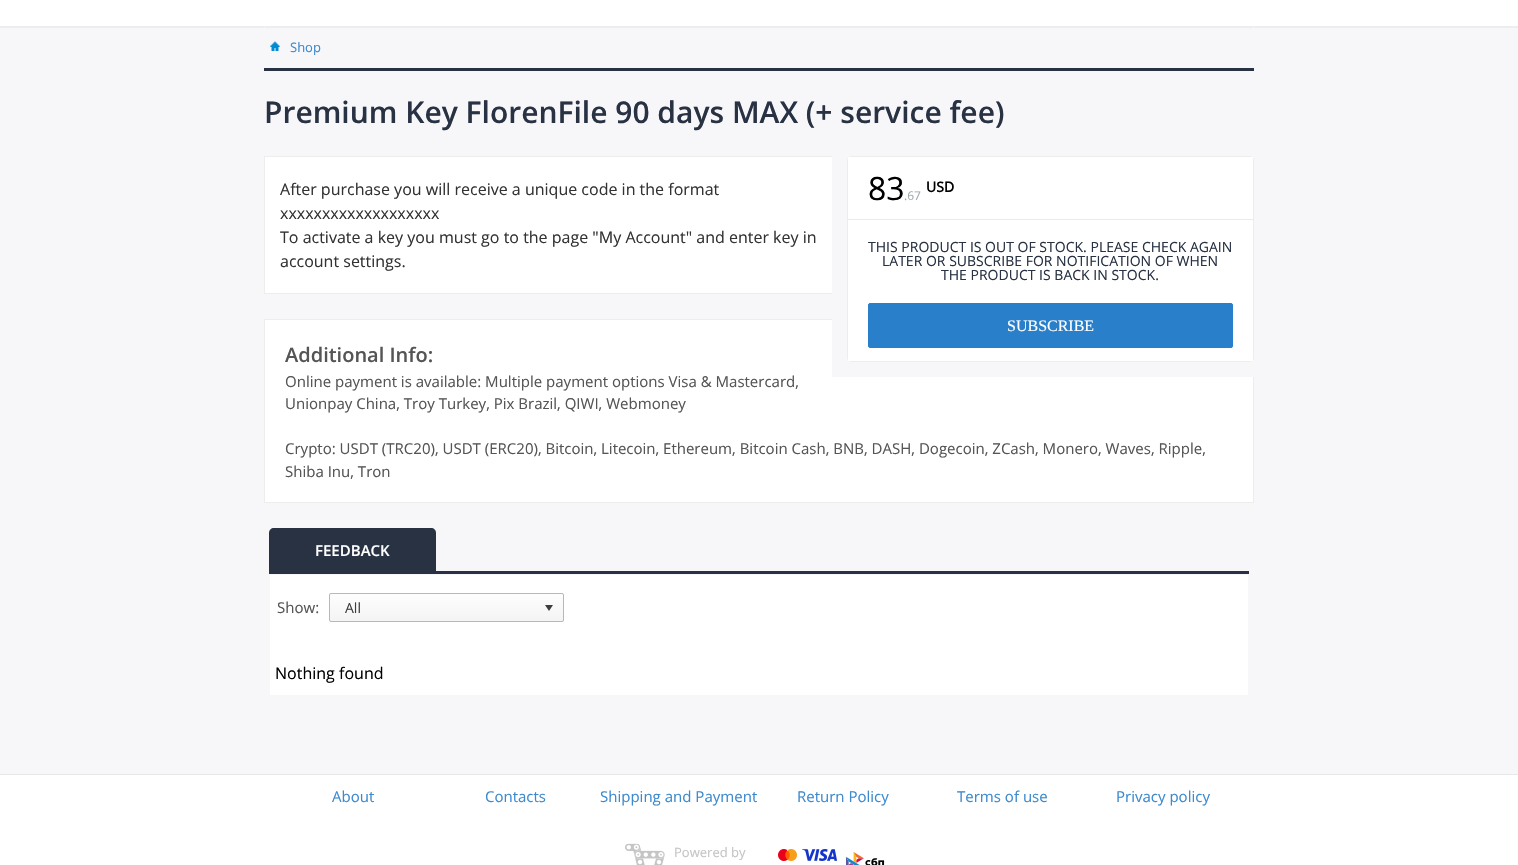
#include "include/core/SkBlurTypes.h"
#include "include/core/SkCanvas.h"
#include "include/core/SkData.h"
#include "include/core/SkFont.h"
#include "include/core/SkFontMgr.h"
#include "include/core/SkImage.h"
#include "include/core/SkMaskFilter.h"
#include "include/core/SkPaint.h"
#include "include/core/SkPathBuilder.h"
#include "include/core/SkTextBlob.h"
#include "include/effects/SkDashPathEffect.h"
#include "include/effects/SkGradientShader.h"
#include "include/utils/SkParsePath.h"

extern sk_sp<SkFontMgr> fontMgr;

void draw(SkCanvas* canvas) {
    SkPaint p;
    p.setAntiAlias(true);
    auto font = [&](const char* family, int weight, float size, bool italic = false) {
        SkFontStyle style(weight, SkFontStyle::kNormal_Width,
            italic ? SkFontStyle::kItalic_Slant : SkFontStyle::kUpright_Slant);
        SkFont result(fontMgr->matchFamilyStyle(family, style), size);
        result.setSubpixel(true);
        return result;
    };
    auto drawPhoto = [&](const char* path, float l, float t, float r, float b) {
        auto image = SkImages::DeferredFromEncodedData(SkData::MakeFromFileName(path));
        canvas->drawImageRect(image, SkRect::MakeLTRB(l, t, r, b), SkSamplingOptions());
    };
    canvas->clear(0xFFFFFFFF);
    {
        const struct { float l, t, r, b; SkColor color; } items[] = {
            {0, 28, 1518, 774, 0xFFF7F7FA},
            {0, 26, 1518, 28, 0xFFEDEDED},
            {264, 68, 1254, 71, 0xFF283243},
            {1253, 27, 1254, 28, 0xFFF7F7FA},
            {264, 27, 265, 28, 0xFFF7F7FA},
        };
        for (auto [l, t, r, b, color] : items) {
            p.setColor(color);
            canvas->drawRect(SkRect::MakeLTRB(l, t, r, b), p);
        }
    }
    drawPhoto("media/1.png", 270, 41, 280, 51);
    auto font1 = font("Open Sans", 400, 13);
    p.setColor(0xFF3C8ACE);
    canvas->drawString("Shop", 290, 52, font1, p);
    auto font2 = font("Open Sans", 600, 30);
    p.setColor(0xFF283243);
    canvas->drawString("Premium Key FlorenFile 90 days MAX (+ service fee)", 264, 123, font2, p);
    p.setColor(0xFFFFFFFF);
    canvas->drawRect(SkRect::MakeLTRB(265, 157, 832, 293), p);
    p.setStyle(SkPaint::kStroke_Style);
    p.setStrokeWidth(1);
    p.setColor(0xFFEDEDED);
    canvas->drawRect(SkRect::MakeLTRB(264.5f, 156.5f, 1253.5f, 293.5f), p);
    auto font3 = font("Open Sans", 400, 16);
    p.setStyle(SkPaint::kFill_Style);
    p.setColor(0xFF333333);
    {
        const struct { const char* s; float x, y; } items[] = {
            {"After purchase you will receive a unique code in the format", 280, 195},
            {"xxxxxxxxxxxxxxxxxxx", 280, 219},
            {"To activate a key you must go to the page \"My Account\" and enter key in", 280, 243},
            {"account settings.", 280, 267},
        };
        for (auto [s, x, y] : items) {
            canvas->drawString(s, x, y, font3, p);
        }
    }
    p.setColor(0xFFFFFFFF);
    canvas->drawRect(SkRect::MakeLTRB(264.5f, 319.5f, 1253.5f, 502.5f), p);
    p.setStyle(SkPaint::kStroke_Style);
    p.setColor(0xFFEDEDED);
    canvas->drawRect(SkRect::MakeLTRB(264.5f, 319.5f, 1253.5f, 502.5f), p);
    p.setStyle(SkPaint::kFill_Style);
    p.setColor(0xFFF7F7FA);
    canvas->drawRect(SkRect::MakeLTRB(832, 156, 1254, 377), p);
    p.setColor(0xFFFFFFFF);
    canvas->drawRoundRect(SkRect::MakeLTRB(847.5f, 156.5f, 1253.5f, 361.5f), 3.5f, 3.5f, p);
    p.setStyle(SkPaint::kStroke_Style);
    p.setColor(0xFFEDEDED);
    canvas->drawRoundRect(SkRect::MakeLTRB(847.5f, 156.5f, 1253.5f, 361.5f), 3.5f, 3.5f, p);
    p.setStyle(SkPaint::kFill_Style);
    p.setColor(0xFFFFFFFF);
    canvas->drawRect(SkRect::MakeLTRB(848, 157, 1253, 159), p);
    p.setColor(0xFFEAEAEA);
    canvas->drawRect(SkRect::MakeLTRB(848, 219, 1253, 220), p);
    auto font4 = font("Open Sans", 400, 32);
    p.setColor(0xFF000000);
    canvas->drawString("83", 868, 200, font4, p);
    auto font5 = font("Open Sans", 700, 14);
    canvas->drawString("USD", 926, 192, font5, p);
    auto font6 = font("Open Sans", 400, 12);
    p.setColor(0xFFA3AAAE);
    canvas->drawString(".67", 904, 200, font6, p);
    auto font7 = font("Open Sans", 400, 14);
    p.setColor(0xFF283243);
    {
        const struct { const char* s; float x, y; } items[] = {
            {"THIS PRODUCT IS OUT OF STOCK. PLEASE CHECK AGAIN", 868, 252},
            {"LATER OR SUBSCRIBE FOR NOTIFICATION OF WHEN", 882, 266},
            {"THE PRODUCT IS BACK IN STOCK.", 941, 280},
        };
        for (auto [s, x, y] : items) {
            canvas->drawString(s, x, y, font7, p);
        }
    }
    p.setColor(0xFFFFFFFF);
    canvas->drawRect(SkRect::MakeLTRB(848, 359, 1253, 361), p);
    p.setColor(0xFF297FCA);
    canvas->drawRoundRect(SkRect::MakeLTRB(868.5f, 303.5f, 1232.5f, 347.5f), 1.5f, 1.5f, p);
    p.setStyle(SkPaint::kStroke_Style);
    canvas->drawRoundRect(SkRect::MakeLTRB(868.5f, 303.5f, 1232.5f, 347.5f), 1.5f, 1.5f, p);
    auto font8 = font("Liberation Serif", 400, 16);
    p.setStyle(SkPaint::kFill_Style);
    p.setColor(0xFFFFFFFF);
    canvas->drawString("SUBSCRIBE", 1007, 331, font8, p);
    auto font9 = font("Open Sans", 600, 20);
    p.setColor(0xFF555555);
    canvas->drawString("Additional Info:", 285, 362, font9, p);
    auto font10 = font("Open Sans", 400, 15);
    {
        const struct { const char* s; float x, y; } items[] = {
            {"Online payment is available: Multiple payment options Visa & Mastercard,", 285, 387},
            {"Unionpay China, Troy Turkey, Pix Brazil, QIWI, Webmoney", 285, 409},
            {"Crypto: USDT (TRC20), USDT (ERC20), Bitcoin, Litecoin, Ethereum, Bitcoin Cash, BNB, DASH, Dogecoin, ZCash, Monero, Waves, Ripple,", 285, 454},
            {"Shiba Inu, Tron", 285, 477},
        };
        for (auto [s, x, y] : items) {
            canvas->drawString(s, x, y, font10, p);
        }
    }
    p.setColor(0xFF283243);
    canvas->drawRect(SkRect::MakeLTRB(269, 571, 1249, 574), p);
    canvas->drawPath(SkPathBuilder().moveTo(274, 528).lineTo(431, 528).cubicTo(434, 528, 436, 530, 436, 533).lineTo(436, 571).lineTo(269, 571).lineTo(269, 533).cubicTo(269, 530, 271, 528, 274, 528).close().detach(), p);
    auto font11 = font("Open Sans", 600, 15);
    p.setColor(0xFFFFFFFF);
    canvas->drawString("FEEDBACK", 315, 556, font11, p);
    canvas->drawRect(SkRect::MakeLTRB(270, 575, 1248, 695), p);
    p.setColor(0xFF555555);
    canvas->drawString("Show:", 277, 613, font10, p);
    drawPhoto("media/2.png", 329, 593, 564, 621);
    p.setStyle(SkPaint::kStroke_Style);
    p.setColor(0xFFB8B8B8);
    canvas->drawRoundRect(SkRect::MakeLTRB(329.5f, 593.5f, 563.5f, 621.5f), 1.5f, 1.5f, p);
    p.setStyle(SkPaint::kFill_Style);
    p.setColor(0xFF3E3E3E);
    canvas->drawString("All", 345, 613, font7, p);
    p.setColor(0xFF000000);
    canvas->drawString("Nothing found", 275, 679, font3, p);
    p.setColor(0xFFE8E8E8);
    canvas->drawRect(SkRect::MakeLTRB(0, 774, 1518, 775), p);
    p.setColor(0xFF3C8ACE);
    {
        const struct { const char* s; float x, y; } items[] = {
            {"About", 332, 802},
            {"Contacts", 485, 802},
            {"Shipping and Payment", 600, 802},
            {"Return Policy", 797, 802},
            {"Terms of use", 957, 802},
            {"Privacy policy", 1116, 802},
        };
        for (auto [s, x, y] : items) {
            canvas->drawString(s, x, y, font10, p);
        }
    }
    drawPhoto("media/3.png", 625, 843, 665, 865);
    p.setColor(0xFFC5C5C5);
    canvas->drawString("Powered by", 674, 857, font1, p);
    drawPhoto("media/4.png", 778, 849, 885, 865);
}
